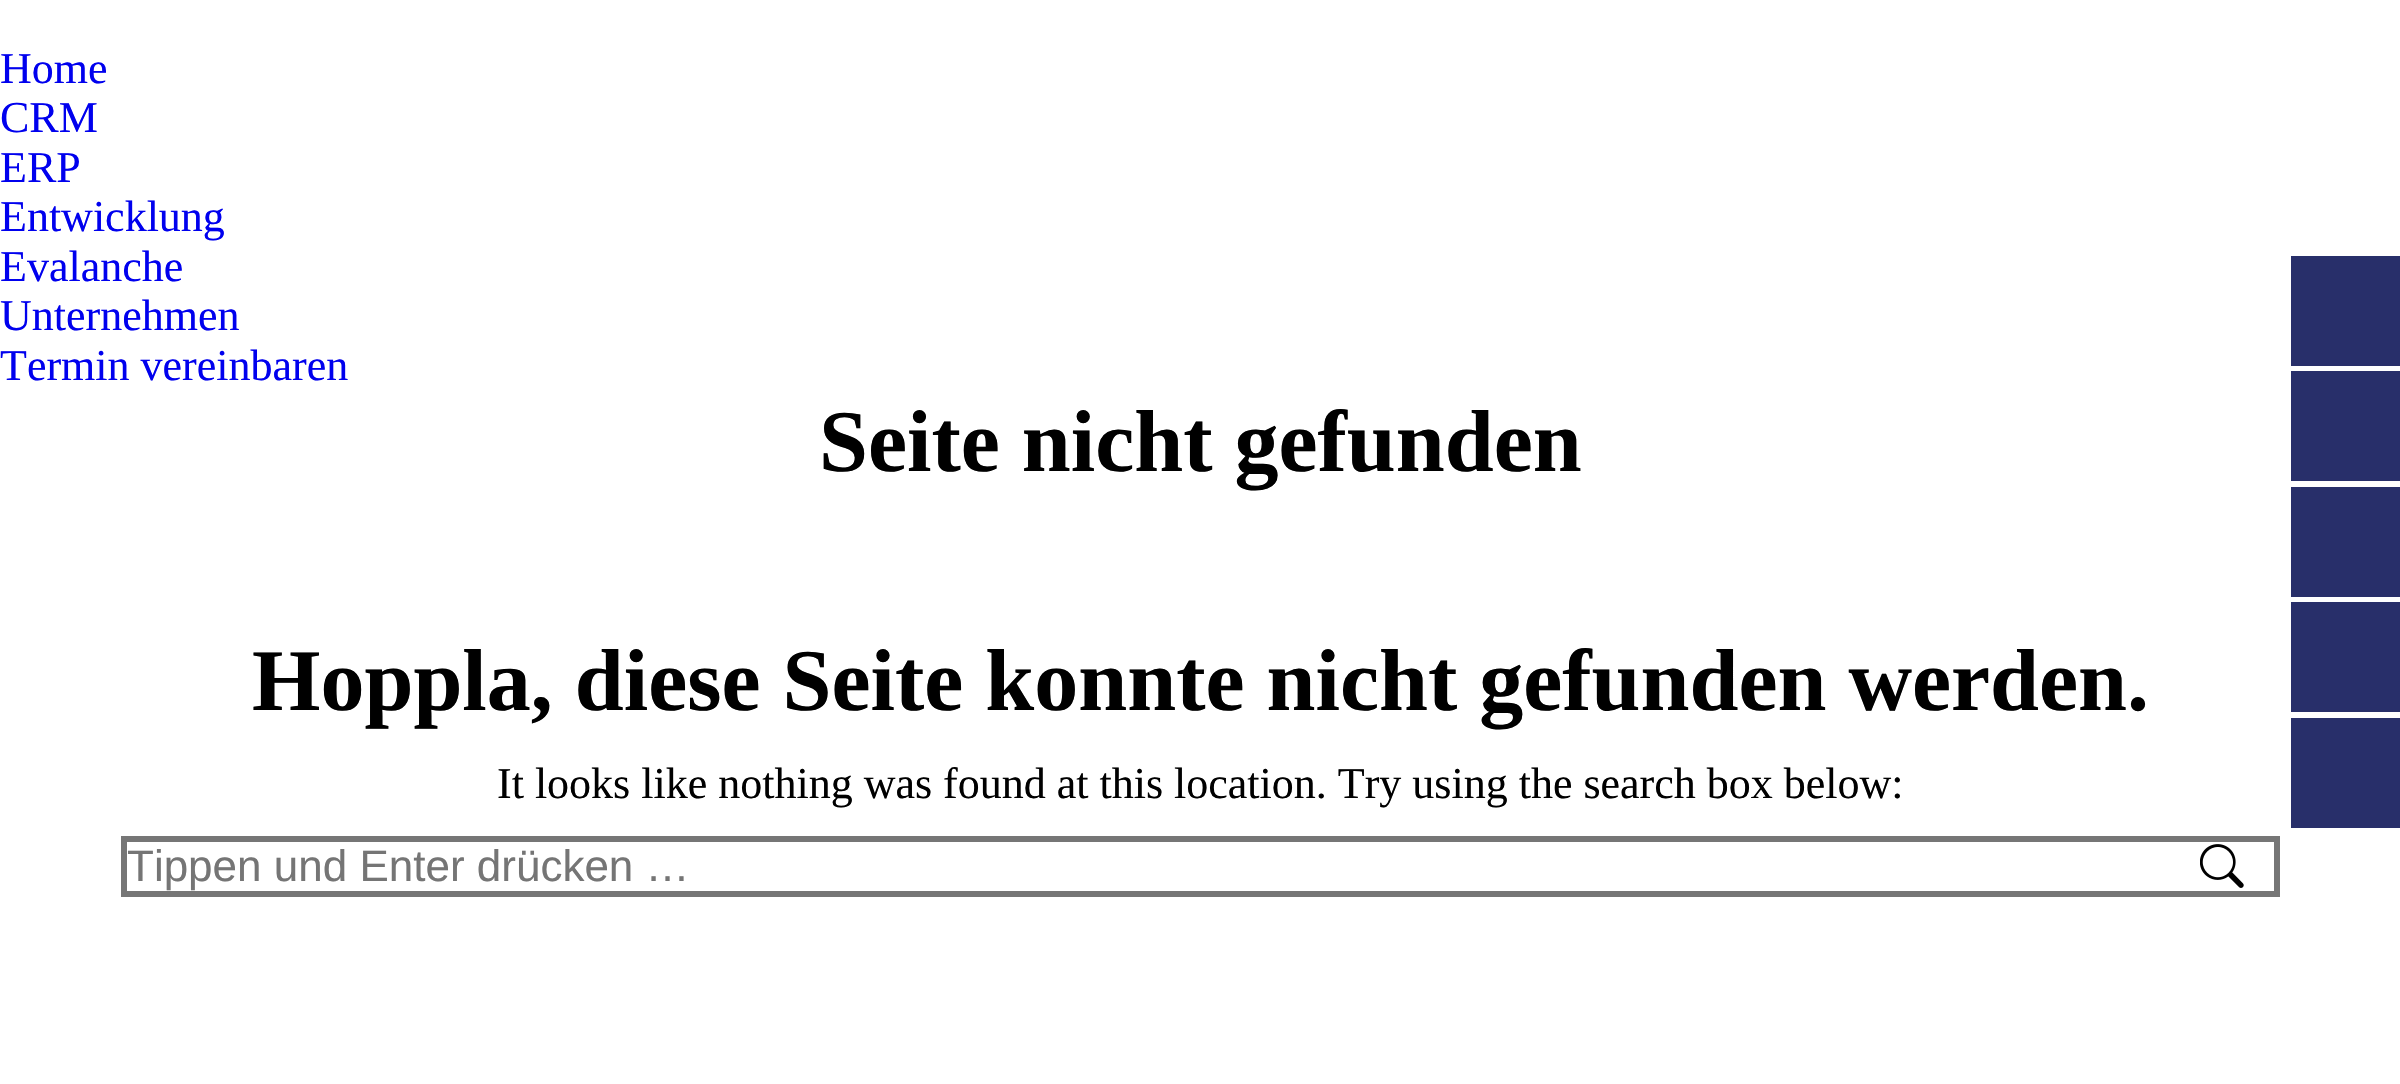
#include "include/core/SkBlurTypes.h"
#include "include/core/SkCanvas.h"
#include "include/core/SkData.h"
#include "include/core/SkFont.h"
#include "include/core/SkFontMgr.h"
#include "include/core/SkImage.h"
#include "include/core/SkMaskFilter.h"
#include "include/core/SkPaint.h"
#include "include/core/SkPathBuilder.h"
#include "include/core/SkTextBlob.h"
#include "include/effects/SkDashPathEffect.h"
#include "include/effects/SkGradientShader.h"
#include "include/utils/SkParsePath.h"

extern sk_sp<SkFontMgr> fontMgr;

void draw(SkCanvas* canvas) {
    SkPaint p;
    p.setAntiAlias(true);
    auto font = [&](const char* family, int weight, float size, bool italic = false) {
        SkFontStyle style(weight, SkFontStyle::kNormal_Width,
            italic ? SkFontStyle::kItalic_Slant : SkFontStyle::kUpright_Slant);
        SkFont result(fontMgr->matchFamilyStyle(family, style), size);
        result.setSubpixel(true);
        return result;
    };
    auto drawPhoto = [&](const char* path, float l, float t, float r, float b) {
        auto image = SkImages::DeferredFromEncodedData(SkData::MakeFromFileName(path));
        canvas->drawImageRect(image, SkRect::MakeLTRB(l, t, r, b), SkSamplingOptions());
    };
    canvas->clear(0xFFFFFFFF);
    auto font1 = font("Liberation Serif", 400, 44);
    p.setColor(0xFF0000EE);
    {
        const struct { const char* s; float x, y; } items[] = {
            {"Home", 0, 83},
            {"CRM", 0, 132},
            {"ERP", 0, 182},
            {"Entwicklung", 0, 231},
            {"Evalanche", 0, 281},
            {"Unternehmen", 0, 330},
            {"Termin vereinbaren", 0, 380},
        };
        for (auto [s, x, y] : items) {
            canvas->drawString(s, x, y, font1, p);
        }
    }
    auto font2 = font("Liberation Serif", 700, 88);
    p.setColor(0xFF000000);
    canvas->drawString("Seite nicht gefunden", 819, 471, font2, p);
    canvas->drawString("Hoppla, diese Seite konnte nicht gefunden werden.", 252, 710, font2, p);
    canvas->drawString("It looks like nothing was found at this location. Try using the search box below:", 497, 798, font1, p);
    p.setStyle(SkPaint::kStroke_Style);
    p.setStrokeWidth(6);
    p.setColor(0xFF767676);
    canvas->drawRect(SkRect::MakeLTRB(124, 839, 2277, 894), p);
    auto font3 = font("Liberation Sans", 400, 44);
    p.setStyle(SkPaint::kFill_Style);
    p.setColor(0xFF757575);
    canvas->drawString("Tippen und Enter drücken …", 127, 881, font3, p);
    drawPhoto("media/1.png", 2200, 844, 2244, 888);
    {
        const struct { float l, t, r, b; SkColor color; } items[] = {
            {2291, 256, 2400, 366, 0xFF282F6A},
            {2291, 371, 2400, 481, 0xFF282F6A},
            {2291, 487, 2400, 597, 0xFF282F6A},
            {2291, 602, 2400, 712, 0xFF282F6A},
            {2291, 718, 2400, 828, 0xFF282F6A},
        };
        for (auto [l, t, r, b, color] : items) {
            p.setColor(color);
            canvas->drawRect(SkRect::MakeLTRB(l, t, r, b), p);
        }
    }
}
